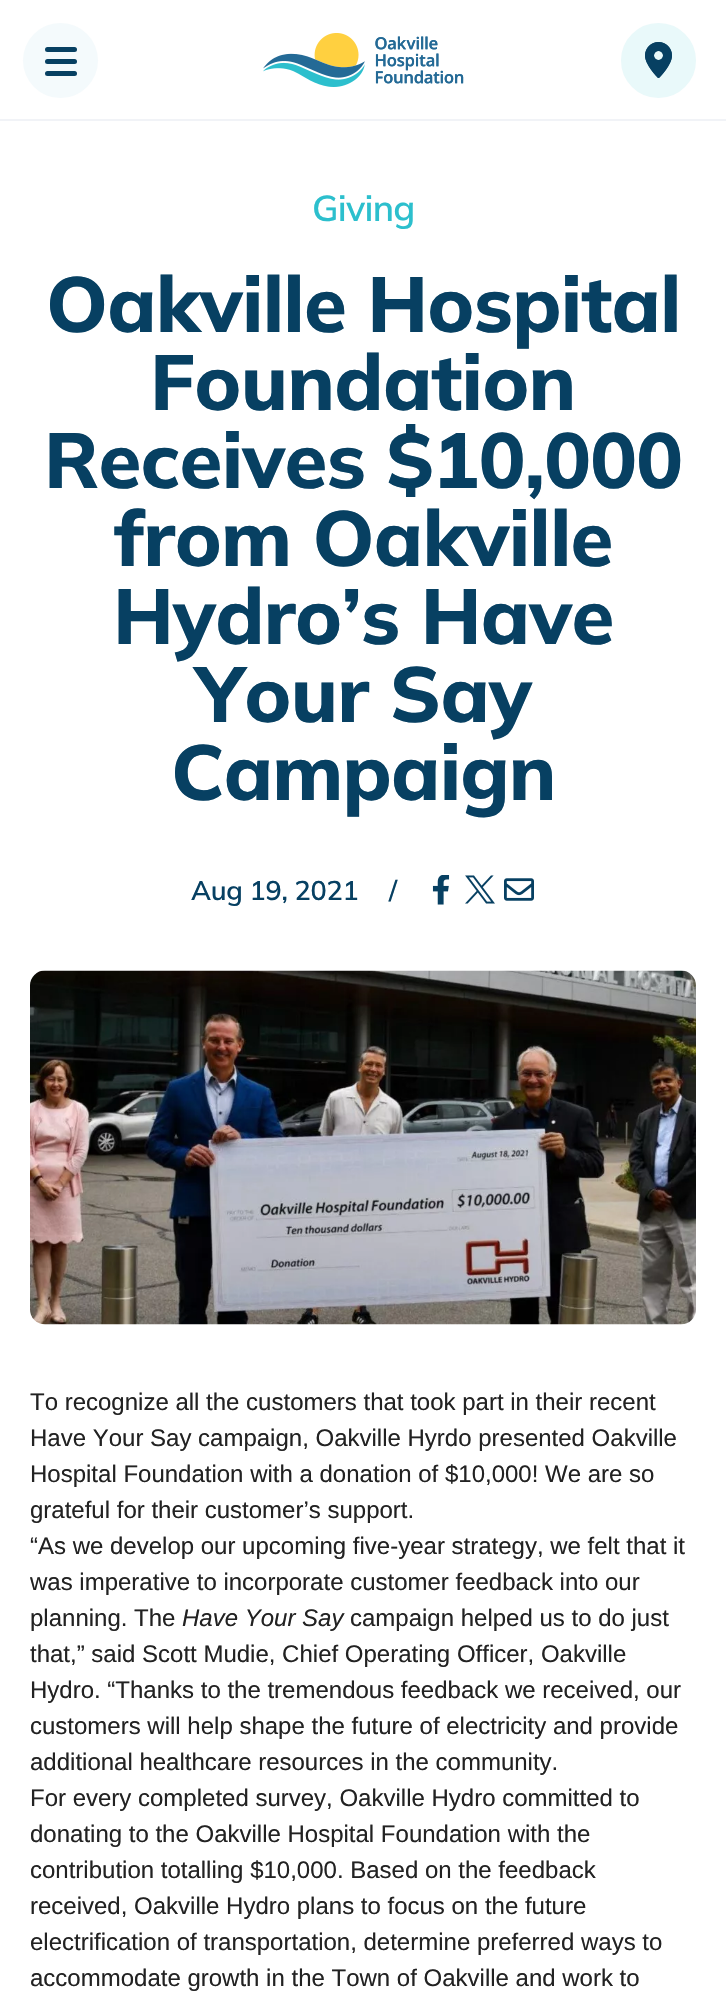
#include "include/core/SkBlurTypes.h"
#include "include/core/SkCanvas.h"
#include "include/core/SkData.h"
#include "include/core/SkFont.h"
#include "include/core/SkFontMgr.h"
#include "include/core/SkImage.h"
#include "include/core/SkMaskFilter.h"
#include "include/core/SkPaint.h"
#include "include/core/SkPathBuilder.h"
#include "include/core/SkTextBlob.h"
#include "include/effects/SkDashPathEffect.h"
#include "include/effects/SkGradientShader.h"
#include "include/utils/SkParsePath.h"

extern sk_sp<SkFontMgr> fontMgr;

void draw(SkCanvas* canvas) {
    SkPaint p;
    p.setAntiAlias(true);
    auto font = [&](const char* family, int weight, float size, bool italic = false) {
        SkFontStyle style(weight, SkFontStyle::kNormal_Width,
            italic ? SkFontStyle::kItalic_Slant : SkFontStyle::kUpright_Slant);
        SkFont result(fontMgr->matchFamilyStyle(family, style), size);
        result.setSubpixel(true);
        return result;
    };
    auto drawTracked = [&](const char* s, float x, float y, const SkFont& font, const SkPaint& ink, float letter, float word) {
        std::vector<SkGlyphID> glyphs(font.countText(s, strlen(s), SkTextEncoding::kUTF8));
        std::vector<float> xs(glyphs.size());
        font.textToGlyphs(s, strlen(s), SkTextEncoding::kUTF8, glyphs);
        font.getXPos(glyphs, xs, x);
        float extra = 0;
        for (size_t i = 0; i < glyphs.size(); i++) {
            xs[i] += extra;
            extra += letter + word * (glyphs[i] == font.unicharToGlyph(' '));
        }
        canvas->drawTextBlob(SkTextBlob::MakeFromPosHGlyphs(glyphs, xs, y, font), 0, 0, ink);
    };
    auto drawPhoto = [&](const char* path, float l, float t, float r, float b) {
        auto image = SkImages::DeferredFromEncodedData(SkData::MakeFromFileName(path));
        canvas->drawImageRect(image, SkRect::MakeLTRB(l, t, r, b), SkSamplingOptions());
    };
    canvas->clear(0xFFFFFFFF);
    p.setColor(0xFFF1F3F7);
    canvas->drawRect(SkRect::MakeLTRB(0, 119, 726, 121), p);
    p.setColor(0xFFF4FAFC);
    canvas->drawCircle(60.5f, 60.5f, 37.5f, p);
    p.setColor(0xFF074062);
    canvas->drawRoundRect(SkRect::MakeLTRB(45, 47, 77, 52), 2.5f, 2.5f, p);
    canvas->drawRoundRect(SkRect::MakeLTRB(45, 59, 77, 64), 2.5f, 2.5f, p);
    canvas->drawRoundRect(SkRect::MakeLTRB(45, 71, 77, 76), 2.5f, 2.5f, p);
    drawPhoto("media/1.png", 263, 33, 464, 87);
    p.setColor(0xFFE9F9FA);
    canvas->drawCircle(658.5f, 60.5f, 36, p);
    p.setStyle(SkPaint::kStroke_Style);
    p.setStrokeWidth(3);
    canvas->drawCircle(658.5f, 60.5f, 36, p);
    drawPhoto("media/2.png", 645, 42, 672, 78);
    auto font1 = font("Mulish", 600, 36);
    p.setStyle(SkPaint::kFill_Style);
    p.setColor(0xFF2CBFCD);
    drawTracked("Giving", 312, 221, font1, p, -0.75f, 0);
    auto font2 = font("Mulish", 800, 78);
    p.setColor(0xFF074062);
    {
        const struct { const char* s; float x, y; } items[] = {
            {"Oakville Hospital", 46, 332},
            {"Foundation", 150, 410},
            {"Receives $10,000", 44, 488},
            {"from Oakville", 114, 566},
            {"Hydro’s Have", 113, 644},
            {"Your Say", 195, 722},
            {"Campaign", 171, 800},
        };
        for (auto [s, x, y] : items) {
            drawTracked(s, x, y, font2, p, -0.75f, 0);
        }
    }
    auto font3 = font("Mulish", 600, 27);
    drawTracked("Aug 19, 2021", 191, 900, font3, p, -0.25f, 0);
    drawTracked("/", 389, 900, font3, p, -0.25f, 0);
    drawPhoto("media/3.png", 432, 875, 450, 905);
    drawPhoto("media/4.png", 465, 875, 495, 904);
    drawPhoto("media/5.png", 504, 878, 534, 901);
    drawPhoto("media/6.png", 30, 970, 696, 1325);
    auto font4 = font("Liberation Sans", 400, 24);
    p.setColor(0xFF222222);
    {
        const struct { const char* s; float x, y; } items[] = {
            {"To recognize all the customers that took part in their recent", 30, 1410},
            {"Have Your Say campaign, Oakville Hyrdo presented Oakville", 30, 1446},
            {"Hospital Foundation with a donation of $10,000! We are so", 30, 1482},
            {"grateful for their customer’s support.", 30, 1518},
            {"“As we develop our upcoming five-year strategy, we felt that it", 30, 1554},
            {"was imperative to incorporate customer feedback into our", 30, 1590},
            {"planning. The", 30, 1626},
        };
        for (auto [s, x, y] : items) {
            canvas->drawString(s, x, y, font4, p);
        }
    }
    auto font5 = font("Liberation Sans", 400, 24, true);
    canvas->drawString("Have Your Say", 182, 1626, font5, p);
    {
        const struct { const char* s; float x, y; } items[] = {
            {"campaign helped us to do just", 350, 1626},
            {"that,” said Scott Mudie, Chief Operating Officer, Oakville", 30, 1662},
            {"Hydro. “Thanks to the tremendous feedback we received, our", 30, 1698},
            {"customers will help shape the future of electricity and provide", 30, 1734},
            {"additional healthcare resources in the community.", 30, 1770},
            {"For every completed survey, Oakville Hydro committed to", 30, 1806},
            {"donating to the Oakville Hospital Foundation with the", 30, 1842},
            {"contribution totalling $10,000. Based on the feedback", 30, 1878},
            {"received, Oakville Hydro plans to focus on the future", 30, 1914},
            {"electrification of transportation, determine preferred ways to", 30, 1950},
            {"accommodate growth in the Town of Oakville and work to", 30, 1986},
        };
        for (auto [s, x, y] : items) {
            canvas->drawString(s, x, y, font4, p);
        }
    }
}
